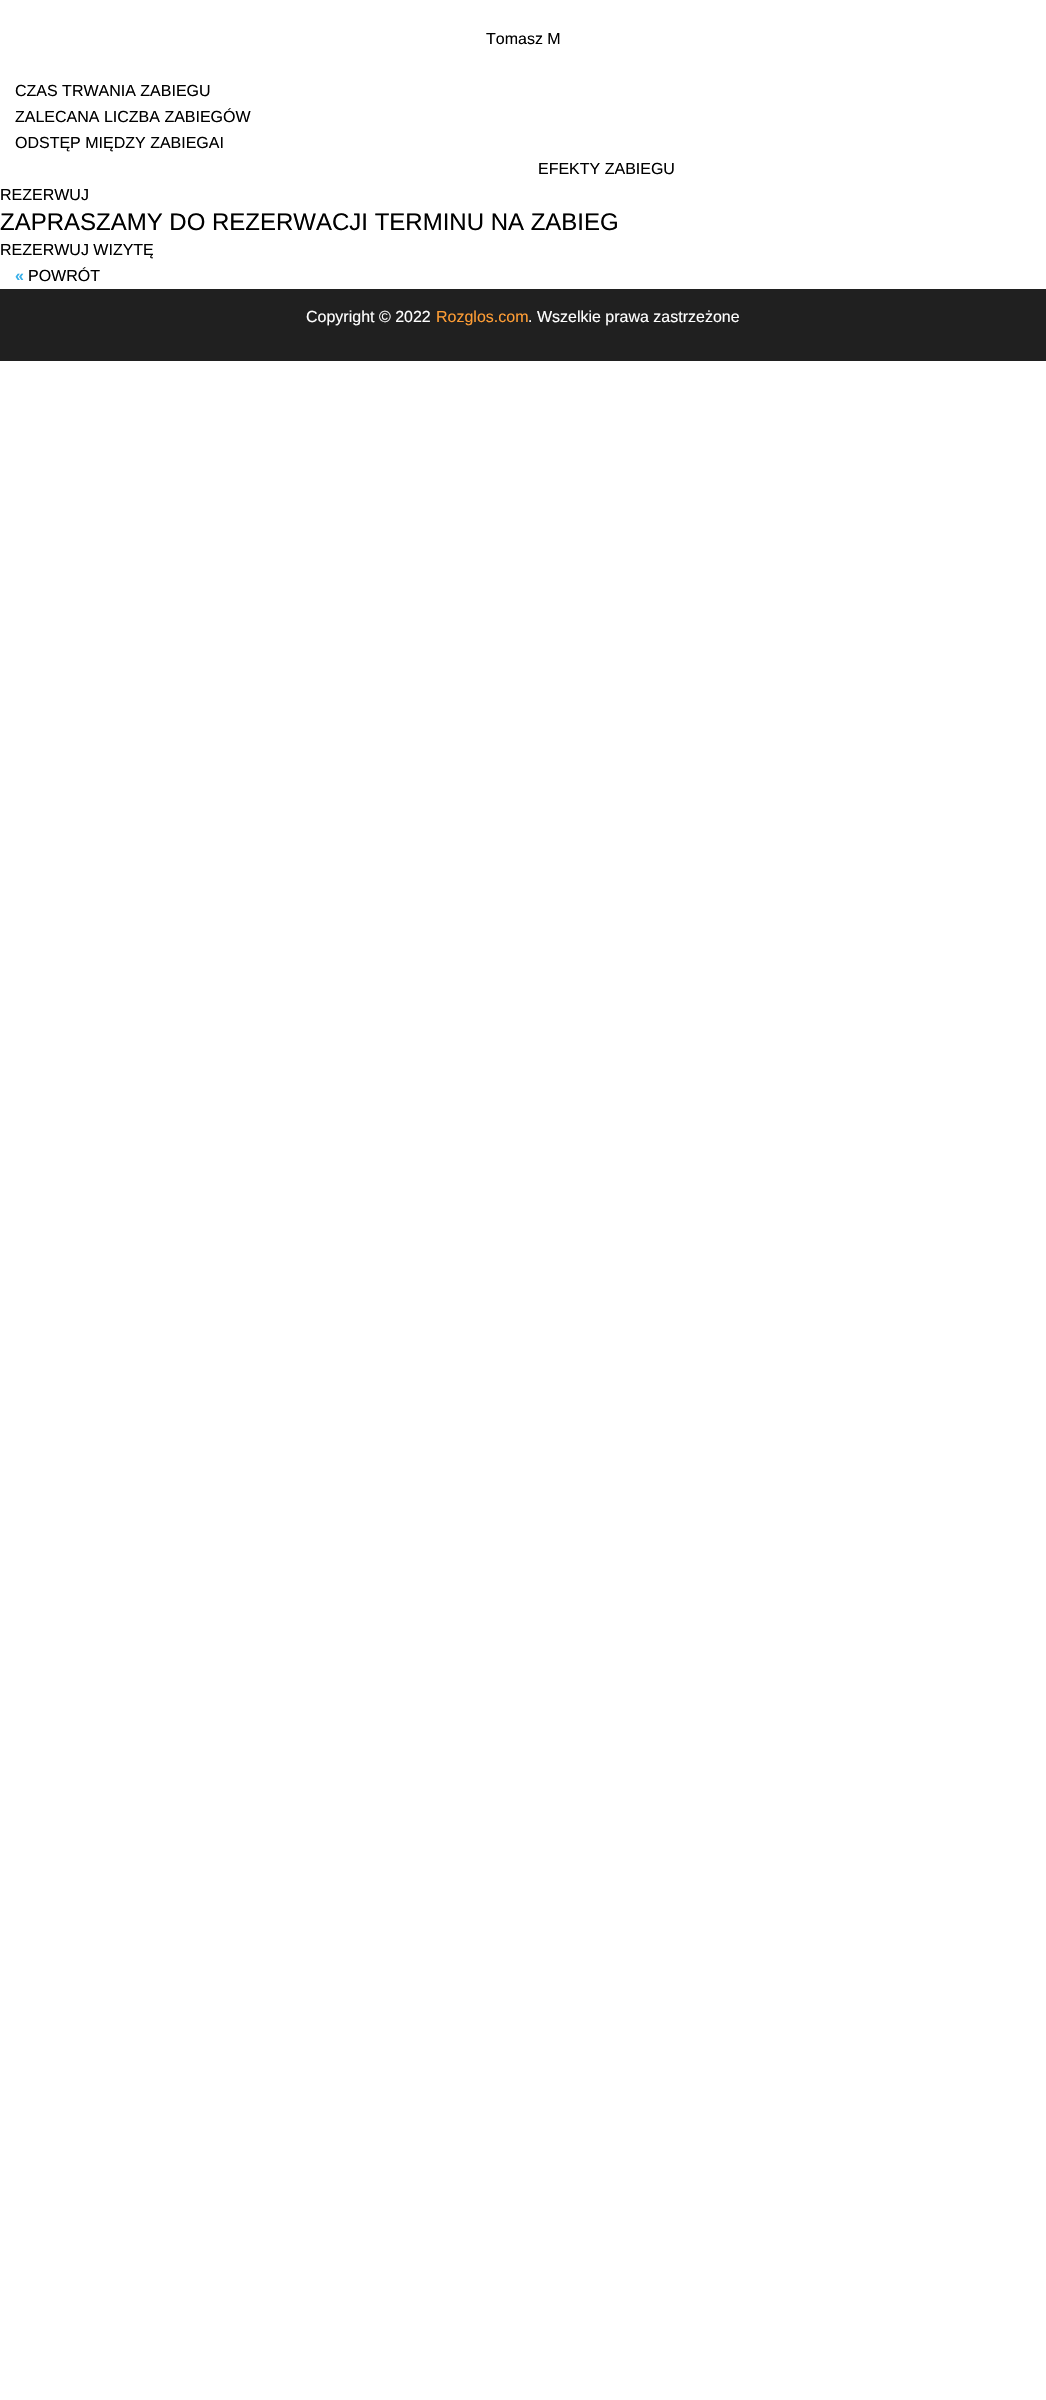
#include "include/core/SkBlurTypes.h"
#include "include/core/SkCanvas.h"
#include "include/core/SkData.h"
#include "include/core/SkFont.h"
#include "include/core/SkFontMgr.h"
#include "include/core/SkImage.h"
#include "include/core/SkMaskFilter.h"
#include "include/core/SkPaint.h"
#include "include/core/SkPathBuilder.h"
#include "include/core/SkTextBlob.h"
#include "include/effects/SkDashPathEffect.h"
#include "include/effects/SkGradientShader.h"
#include "include/utils/SkParsePath.h"

extern sk_sp<SkFontMgr> fontMgr;

void draw(SkCanvas* canvas) {
    SkPaint p;
    p.setAntiAlias(true);
    auto font = [&](const char* family, int weight, float size, bool italic = false) {
        SkFontStyle style(weight, SkFontStyle::kNormal_Width,
            italic ? SkFontStyle::kItalic_Slant : SkFontStyle::kUpright_Slant);
        SkFont result(fontMgr->matchFamilyStyle(family, style), size);
        result.setSubpixel(true);
        return result;
    };
    canvas->clear(0xFFFFFFFF);
    auto font1 = font("Liberation Sans", 400, 16);
    p.setColor(0xFF000000);
    {
        const struct { const char* s; float x, y; } items[] = {
            {"Tomasz M", 486, 44},
            {"CZAS TRWANIA ZABIEGU", 15, 96},
            {"ZALECANA LICZBA ZABIEGÓW", 15, 122},
            {"ODSTĘP MIĘDZY ZABIEGAI", 15, 148},
            {"EFEKTY ZABIEGU", 538, 174},
            {"REZERWUJ", 0, 200},
        };
        for (auto [s, x, y] : items) {
            canvas->drawString(s, x, y, font1, p);
        }
    }
    auto font2 = font("Liberation Sans", 400, 24);
    canvas->drawString("ZAPRASZAMY DO REZERWACJI TERMINU NA ZABIEG", 0, 230, font2, p);
    canvas->drawString("REZERWUJ WIZYTĘ", 0, 255, font1, p);
    auto font3 = font("Liberation Sans", 700, 16);
    p.setColor(0xFF38AFE9);
    canvas->drawString("«", 15, 281, font3, p);
    p.setColor(0xFF000000);
    canvas->drawString("POWRÓT", 28, 281, font1, p);
    p.setColor(0xFF202020);
    canvas->drawRect(SkRect::MakeLTRB(0, 289, 1046, 361), p);
    p.setColor(0xFFFFFFFF);
    canvas->drawString("Copyright © 2022", 306, 322, font1, p);
    p.setColor(0xFFFF9D34);
    canvas->drawString("Rozglos.com", 436, 322, font1, p);
    p.setColor(0xFFFFFFFF);
    canvas->drawString(". Wszelkie prawa zastrzeżone", 528, 322, font1, p);
}
